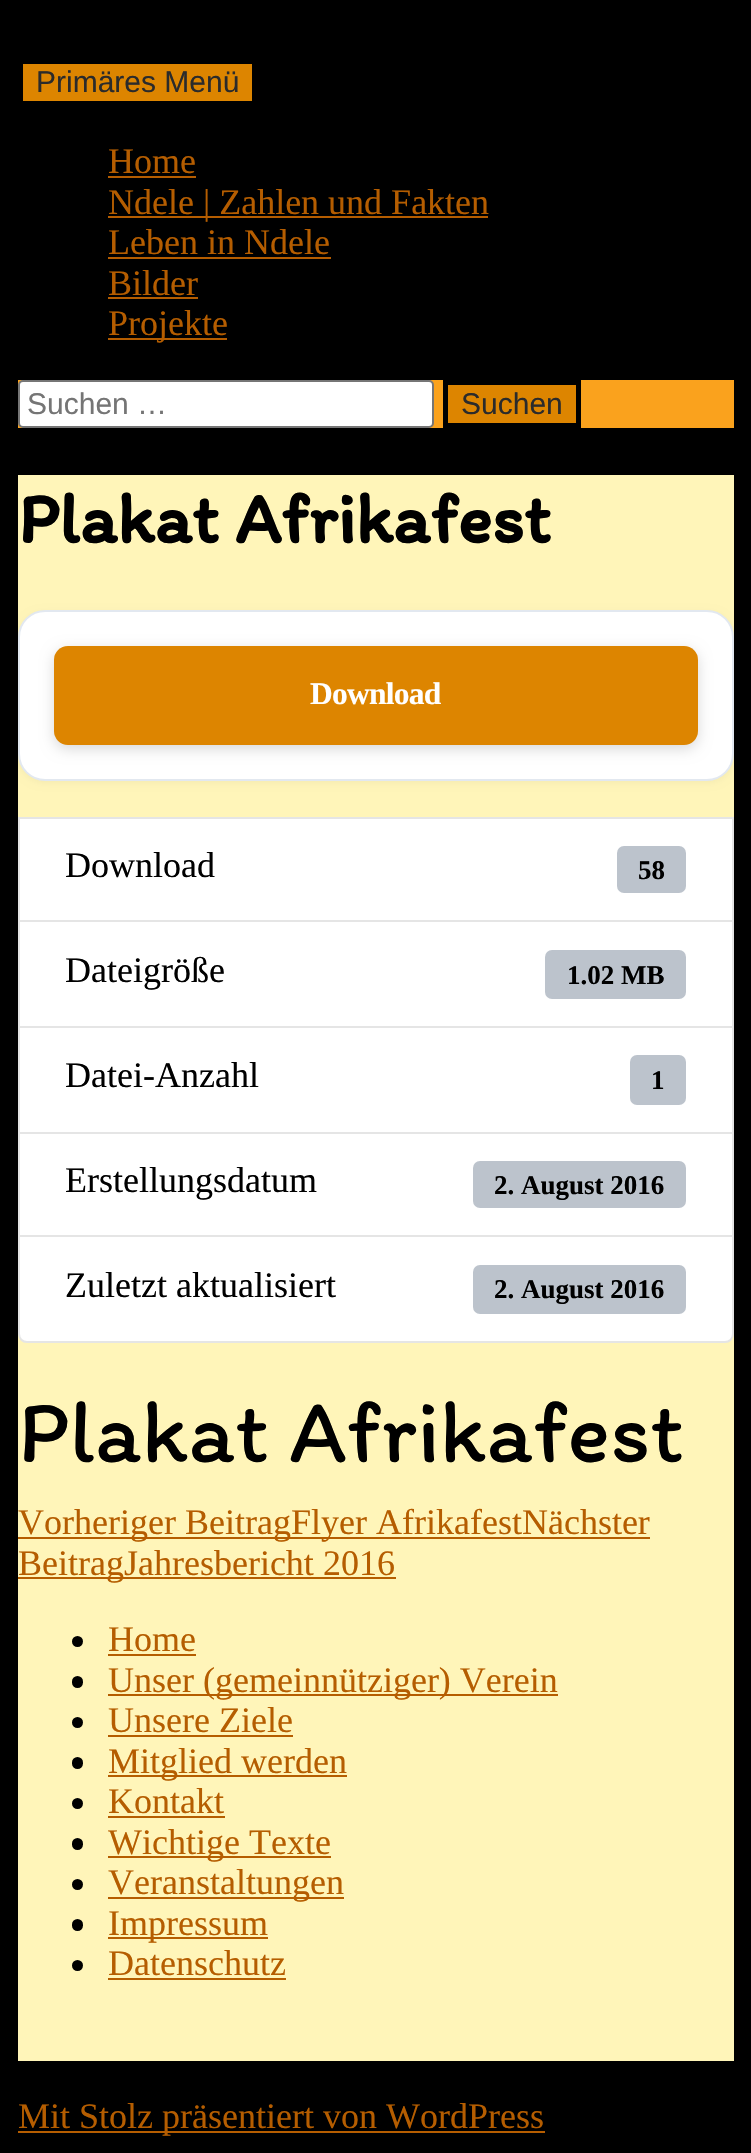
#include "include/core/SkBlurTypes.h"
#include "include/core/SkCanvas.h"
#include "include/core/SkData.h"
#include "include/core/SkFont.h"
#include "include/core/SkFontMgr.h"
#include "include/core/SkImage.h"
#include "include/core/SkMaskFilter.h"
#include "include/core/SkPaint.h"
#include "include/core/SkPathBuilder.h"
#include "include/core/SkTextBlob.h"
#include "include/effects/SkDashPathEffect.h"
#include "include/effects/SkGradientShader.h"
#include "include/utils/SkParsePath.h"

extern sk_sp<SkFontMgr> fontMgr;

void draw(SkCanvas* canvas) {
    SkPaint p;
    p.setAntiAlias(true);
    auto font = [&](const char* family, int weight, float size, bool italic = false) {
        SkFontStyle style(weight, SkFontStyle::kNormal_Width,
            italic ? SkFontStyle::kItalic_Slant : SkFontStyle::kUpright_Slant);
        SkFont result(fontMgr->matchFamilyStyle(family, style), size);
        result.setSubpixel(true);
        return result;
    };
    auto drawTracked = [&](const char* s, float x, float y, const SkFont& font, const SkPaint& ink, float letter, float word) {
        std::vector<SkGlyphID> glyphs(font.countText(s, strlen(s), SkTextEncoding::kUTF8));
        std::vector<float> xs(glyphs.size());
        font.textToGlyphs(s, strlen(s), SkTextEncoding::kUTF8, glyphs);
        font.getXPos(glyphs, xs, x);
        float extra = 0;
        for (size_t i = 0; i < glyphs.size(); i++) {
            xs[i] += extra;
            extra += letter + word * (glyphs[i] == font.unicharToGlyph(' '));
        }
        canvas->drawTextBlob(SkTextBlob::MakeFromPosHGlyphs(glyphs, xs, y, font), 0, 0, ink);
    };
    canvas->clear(0xFF000000);
    p.setColor(0xFFDD8500);
    canvas->drawRect(SkRect::MakeLTRB(23, 64, 252, 101), p);
    auto font1 = font("Liberation Sans", 400, 30);
    p.setColor(0xFF2B2B2B);
    canvas->drawString("Primäres Menü", 36, 92, font1, p);
    auto font2 = font("Liberation Serif", 400, 36);
    p.setColor(0xFFB55D00);
    canvas->drawString("Home", 108, 173, font2, p);
    canvas->drawRect(SkRect::MakeLTRB(108, 176, 196, 178), p);
    canvas->drawRect(SkRect::MakeLTRB(108, 216, 488, 218), p);
    canvas->drawString("Ndele | Zahlen und Fakten", 108, 214, font2, p);
    canvas->drawString("Leben in Ndele", 108, 254, font2, p);
    canvas->drawRect(SkRect::MakeLTRB(108, 257, 331, 259), p);
    canvas->drawString("Bilder", 108, 295, font2, p);
    canvas->drawRect(SkRect::MakeLTRB(108, 297, 198, 299), p);
    canvas->drawRect(SkRect::MakeLTRB(108, 338, 227, 340), p);
    canvas->drawString("Projekte", 108, 335, font2, p);
    p.setColor(0xFFFAA21D);
    canvas->drawRect(SkRect::MakeLTRB(18, 380, 734, 428), p);
    p.setColor(0xFFFFFFFF);
    canvas->drawRoundRect(SkRect::MakeLTRB(19, 381, 433, 427), 4, 4, p);
    p.setStyle(SkPaint::kStroke_Style);
    p.setStrokeWidth(2);
    p.setColor(0xFF767676);
    canvas->drawRoundRect(SkRect::MakeLTRB(19, 381, 433, 427), 4, 4, p);
    p.setStyle(SkPaint::kFill_Style);
    p.setColor(0xFF757575);
    canvas->drawString("Suchen …", 27, 414, font1, p);
    p.setColor(0xFFDD8500);
    canvas->drawRect(SkRect::MakeLTRB(445.5f, 382.5f, 578.5f, 425.5f), p);
    p.setStyle(SkPaint::kStroke_Style);
    p.setStrokeWidth(5);
    p.setColor(0xFF000000);
    canvas->drawRect(SkRect::MakeLTRB(445.5f, 382.5f, 578.5f, 425.5f), p);
    p.setStyle(SkPaint::kFill_Style);
    p.setColor(0xFF2B2B2B);
    canvas->drawString("Suchen", 461, 414, font1, p);
    p.setColor(0xFFFFF5B9);
    canvas->drawRect(SkRect::MakeLTRB(18, 475, 734, 2061), p);
    auto font3 = font("Itim", 700, 72);
    p.setColor(0xFF000000);
    canvas->drawString("Plakat Afrikafest", 18, 543, font3, p);
    p.setColor(0x0A000000);
    p.setMaskFilter(SkMaskFilter::MakeBlur(kNormal_SkBlurStyle, 3.5f));
    canvas->drawRoundRect(SkRect::MakeLTRB(18, 612, 734, 783), 27, 27, p);
    p.setMaskFilter(nullptr);
    p.setColor(0xFFFFFFFF);
    canvas->drawRoundRect(SkRect::MakeLTRB(19, 611, 733, 780), 26, 26, p);
    p.setStyle(SkPaint::kStroke_Style);
    p.setStrokeWidth(2);
    p.setColor(0xFFE2E8F0);
    canvas->drawRoundRect(SkRect::MakeLTRB(19, 611, 733, 780), 26, 26, p);
    p.setStyle(SkPaint::kFill_Style);
    p.setColor(0x26000000);
    p.setMaskFilter(SkMaskFilter::MakeBlur(kNormal_SkBlurStyle, 7));
    canvas->drawRoundRect(SkRect::MakeLTRB(54, 650, 698, 749), 14, 14, p);
    p.setMaskFilter(nullptr);
    p.setColor(0xFFDD8500);
    canvas->drawRoundRect(SkRect::MakeLTRB(54, 646, 698, 745), 14, 14, p);
    auto font4 = font("Liberation Serif", 700, 31.5f);
    p.setColor(0xFFFFFFFF);
    drawTracked("Download", 310, 704, font4, p, -0.75f, 0);
    canvas->drawRect(SkRect::MakeLTRB(20, 819, 732, 920), p);
    p.setStyle(SkPaint::kStroke_Style);
    p.setColor(0xFFE5E5E5);
    canvas->drawRect(SkRect::MakeLTRB(19, 818, 733, 922), p);
    p.setStyle(SkPaint::kFill_Style);
    p.setColor(0xFF000000);
    canvas->drawString("Download", 65, 877, font2, p);
    p.setColor(0xFFBCC3CC);
    canvas->drawRoundRect(SkRect::MakeLTRB(617, 846, 686, 893), 7, 7, p);
    auto font5 = font("Liberation Serif", 700, 27);
    p.setColor(0xFF000000);
    canvas->drawString("58", 638, 879, font5, p);
    p.setColor(0xFFFFFFFF);
    canvas->drawRect(SkRect::MakeLTRB(19, 921, 733, 1027), p);
    p.setStyle(SkPaint::kStroke_Style);
    p.setColor(0xFFE5E5E5);
    canvas->drawRect(SkRect::MakeLTRB(19, 921, 733, 1027), p);
    p.setStyle(SkPaint::kFill_Style);
    p.setColor(0xFF000000);
    canvas->drawString("Dateigröße", 65, 982, font2, p);
    p.setColor(0xFFBCC3CC);
    canvas->drawRoundRect(SkRect::MakeLTRB(545, 950, 686, 999), 7, 7, p);
    p.setColor(0xFF000000);
    canvas->drawString("1.02 MB", 567, 984, font5, p);
    p.setColor(0xFFFFFFFF);
    canvas->drawRect(SkRect::MakeLTRB(19, 1027, 733, 1133), p);
    p.setStyle(SkPaint::kStroke_Style);
    p.setColor(0xFFE5E5E5);
    canvas->drawRect(SkRect::MakeLTRB(19, 1027, 733, 1133), p);
    p.setStyle(SkPaint::kFill_Style);
    p.setColor(0xFF000000);
    canvas->drawString("Datei-Anzahl", 65, 1087, font2, p);
    p.setColor(0xFFBCC3CC);
    canvas->drawRoundRect(SkRect::MakeLTRB(630, 1055, 686, 1105), 7, 7, p);
    p.setColor(0xFF000000);
    canvas->drawString("1", 651, 1089, font5, p);
    p.setColor(0xFFFFFFFF);
    canvas->drawRect(SkRect::MakeLTRB(20, 1134, 732, 1235), p);
    p.setStyle(SkPaint::kStroke_Style);
    p.setColor(0xFFE5E5E5);
    canvas->drawRect(SkRect::MakeLTRB(19, 1133, 733, 1237), p);
    p.setStyle(SkPaint::kFill_Style);
    p.setColor(0xFF000000);
    canvas->drawString("Erstellungsdatum", 65, 1192, font2, p);
    p.setColor(0xFFBCC3CC);
    canvas->drawRoundRect(SkRect::MakeLTRB(473, 1161, 686, 1208), 7, 7, p);
    p.setColor(0xFF000000);
    canvas->drawString("2. August 2016", 494, 1194, font5, p);
    p.setColor(0xFFFFFFFF);
    canvas->drawPath(SkPathBuilder().moveTo(19, 1236).lineTo(733, 1236).lineTo(733, 1334).cubicTo(733, 1338.5f, 729.5f, 1342, 725, 1342).lineTo(27, 1342).cubicTo(22.5f, 1342, 19, 1338.5f, 19, 1334).close().detach(), p);
    p.setStyle(SkPaint::kStroke_Style);
    p.setColor(0xFFE5E5E5);
    canvas->drawPath(SkPathBuilder().moveTo(19, 1236).lineTo(733, 1236).lineTo(733, 1334).cubicTo(733, 1338.5f, 729.5f, 1342, 725, 1342).lineTo(27, 1342).cubicTo(22.5f, 1342, 19, 1338.5f, 19, 1334).close().detach(), p);
    p.setStyle(SkPaint::kFill_Style);
    p.setColor(0xFF000000);
    canvas->drawString("Zuletzt aktualisiert", 65, 1297, font2, p);
    p.setColor(0xFFBCC3CC);
    canvas->drawRoundRect(SkRect::MakeLTRB(473, 1265, 686, 1314), 7, 7, p);
    p.setColor(0xFF000000);
    canvas->drawString("2. August 2016", 494, 1298, font5, p);
    auto font6 = font("Itim", 400, 90);
    canvas->drawString("Plakat Afrikafest", 18, 1462, font6, p);
    p.setColor(0xFFB55D00);
    canvas->drawRect(SkRect::MakeLTRB(18, 1537, 290, 1539), p);
    canvas->drawString("Vorheriger Beitrag", 18, 1534, font2, p);
    canvas->drawRect(SkRect::MakeLTRB(290, 1537, 650, 1539), p);
    canvas->drawString("Flyer AfrikafestNächster", 291, 1534, font2, p);
    canvas->drawRect(SkRect::MakeLTRB(18, 1577, 396, 1579), p);
    canvas->drawString("BeitragJahresbericht 2016", 18, 1575, font2, p);
    p.setColor(0xFF000000);
    canvas->drawCircle(77.5f, 1641.5f, 5.5f, p);
    p.setColor(0xFFB55D00);
    canvas->drawString("Home", 108, 1651, font2, p);
    canvas->drawRect(SkRect::MakeLTRB(108, 1654, 196, 1656), p);
    p.setColor(0xFF000000);
    canvas->drawRoundRect(SkRect::MakeLTRB(72, 1676, 83, 1688), 5.5f, 5.5f, p);
    p.setColor(0xFFB55D00);
    canvas->drawRect(SkRect::MakeLTRB(108, 1694, 558, 1696), p);
    canvas->drawString("Unser (gemeinnütziger) Verein", 108, 1692, font2, p);
    p.setColor(0xFF000000);
    canvas->drawCircle(77.5f, 1722.5f, 5.5f, p);
    p.setColor(0xFFB55D00);
    canvas->drawString("Unsere Ziele", 108, 1732, font2, p);
    canvas->drawRect(SkRect::MakeLTRB(108, 1735, 293, 1737), p);
    p.setColor(0xFF000000);
    canvas->drawRoundRect(SkRect::MakeLTRB(72, 1757, 83, 1769), 5.5f, 5.5f, p);
    p.setColor(0xFFB55D00);
    canvas->drawRect(SkRect::MakeLTRB(108, 1775, 347, 1777), p);
    canvas->drawString("Mitglied werden", 108, 1773, font2, p);
    p.setColor(0xFF000000);
    canvas->drawCircle(77.5f, 1803.5f, 5.5f, p);
    p.setColor(0xFFB55D00);
    canvas->drawString("Kontakt", 108, 1813, font2, p);
    canvas->drawRect(SkRect::MakeLTRB(108, 1816, 225, 1818), p);
    p.setColor(0xFF000000);
    canvas->drawRoundRect(SkRect::MakeLTRB(72, 1838, 83, 1850), 5.5f, 5.5f, p);
    p.setColor(0xFFB55D00);
    canvas->drawRect(SkRect::MakeLTRB(108, 1856, 331, 1858), p);
    canvas->drawString("Wichtige Texte", 108, 1854, font2, p);
    p.setColor(0xFF000000);
    canvas->drawCircle(77.5f, 1884.5f, 5.5f, p);
    p.setColor(0xFFB55D00);
    canvas->drawRect(SkRect::MakeLTRB(108, 1897, 344, 1899), p);
    canvas->drawString("Veranstaltungen", 108, 1894, font2, p);
    p.setColor(0xFF000000);
    canvas->drawRoundRect(SkRect::MakeLTRB(72, 1919, 83, 1931), 5.5f, 5.5f, p);
    p.setColor(0xFFB55D00);
    canvas->drawRect(SkRect::MakeLTRB(108, 1937, 268, 1939), p);
    canvas->drawString("Impressum", 108, 1935, font2, p);
    p.setColor(0xFF000000);
    canvas->drawCircle(77.5f, 1965.5f, 5.5f, p);
    p.setColor(0xFFB55D00);
    canvas->drawString("Datenschutz", 108, 1975, font2, p);
    canvas->drawRect(SkRect::MakeLTRB(108, 1978, 286, 1980), p);
    canvas->drawRect(SkRect::MakeLTRB(18, 2131, 545, 2133), p);
    canvas->drawString("Mit Stolz präsentiert von WordPress", 18, 2128, font2, p);
}
